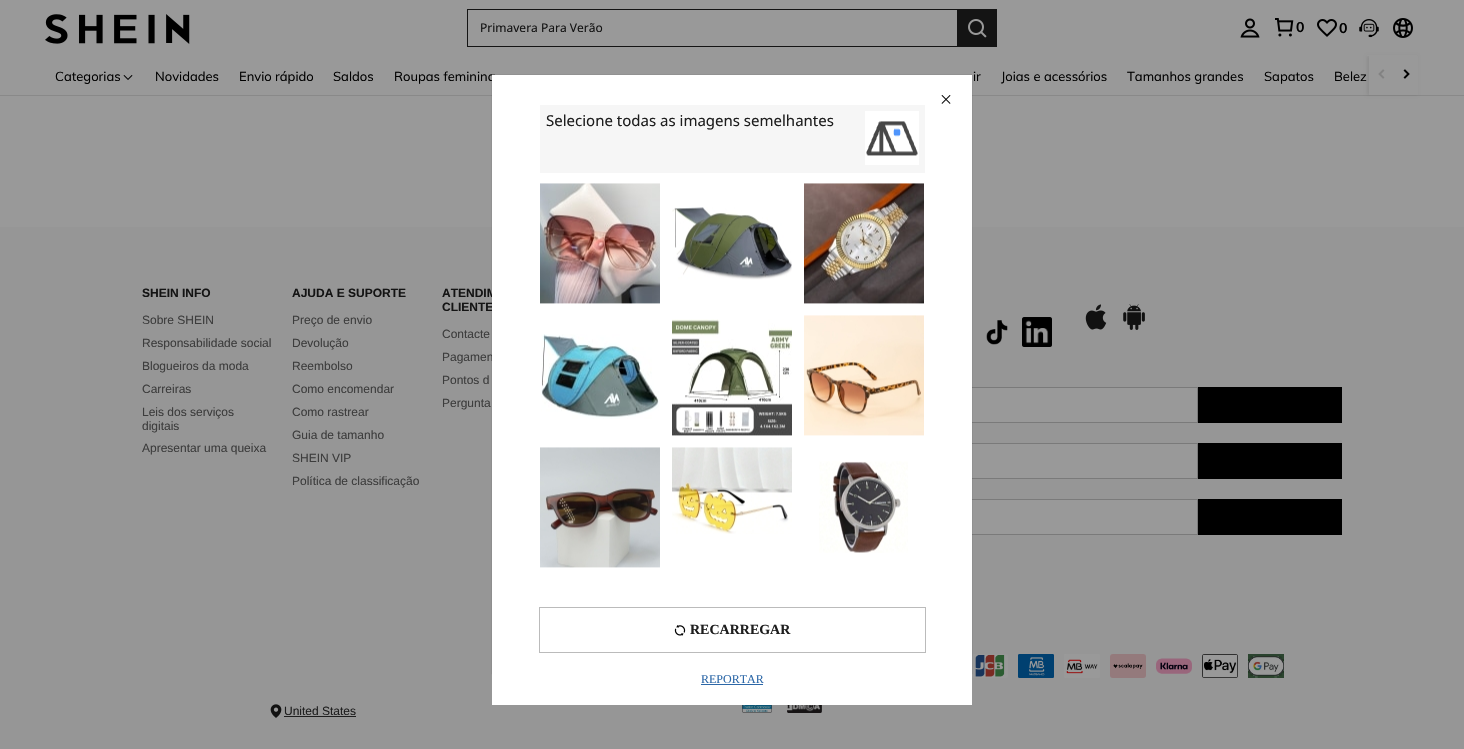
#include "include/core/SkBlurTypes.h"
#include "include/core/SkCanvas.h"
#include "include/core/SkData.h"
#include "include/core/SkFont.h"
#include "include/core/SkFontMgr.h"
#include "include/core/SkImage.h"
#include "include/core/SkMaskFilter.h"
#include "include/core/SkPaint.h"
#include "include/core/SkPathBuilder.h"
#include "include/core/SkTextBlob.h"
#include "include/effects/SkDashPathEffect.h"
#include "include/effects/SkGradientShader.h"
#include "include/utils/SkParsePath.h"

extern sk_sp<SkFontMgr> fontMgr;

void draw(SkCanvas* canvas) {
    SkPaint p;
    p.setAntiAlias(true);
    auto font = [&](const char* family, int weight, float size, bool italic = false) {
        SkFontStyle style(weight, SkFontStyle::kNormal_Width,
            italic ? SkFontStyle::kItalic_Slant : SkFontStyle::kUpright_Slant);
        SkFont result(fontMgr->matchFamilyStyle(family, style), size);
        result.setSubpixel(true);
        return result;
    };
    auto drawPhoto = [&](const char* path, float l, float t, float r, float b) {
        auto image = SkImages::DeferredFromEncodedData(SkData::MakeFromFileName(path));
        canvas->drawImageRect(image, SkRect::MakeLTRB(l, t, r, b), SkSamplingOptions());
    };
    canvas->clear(0xFF999999);
    p.setColor(0xFF898989);
    canvas->drawRect(SkRect::MakeLTRB(0, 95, 1464, 96), p);
    p.setColor(0x14000000);
    p.setMaskFilter(SkMaskFilter::MakeBlur(kNormal_SkBlurStyle, 1.5f));
    canvas->drawRect(SkRect::MakeLTRB(1367, 56, 1417, 95), p);
    p.setMaskFilter(nullptr);
    p.setColor(0xFF999999);
    canvas->drawRect(SkRect::MakeLTRB(1367, 55, 1417, 56), p);
    drawPhoto("media/1.png", 45, 14, 190, 44);
    {
        const struct { float l, t, r, b; SkColor color; } items[] = {
            {467, 9, 957, 10, 0xFF141414},
            {467, 46, 957, 47, 0xFF141414},
            {467, 9, 468, 47, 0xFF141414},
        };
        for (auto [l, t, r, b, color] : items) {
            p.setColor(color);
            canvas->drawRect(SkRect::MakeLTRB(l, t, r, b), p);
        }
    }
    auto font1 = font("Noto Sans", 400, 12);
    canvas->drawString("Primavera Para Verão", 480, 32, font1, p);
    canvas->drawRect(SkRect::MakeLTRB(957, 9, 997, 47), p);
    drawPhoto("media/2.png", 968, 19, 987, 38);
    drawPhoto("media/3.png", 1240, 18, 1260, 38);
    drawPhoto("media/4.png", 1275, 18, 1294, 37);
    auto font2 = font("Muli", 700, 14);
    p.setColor(0xFF000000);
    canvas->drawString("0", 1296, 32, font2, p);
    drawPhoto("media/5.png", 1317, 19, 1337, 37);
    canvas->drawString("0", 1339, 33, font2, p);
    drawPhoto("media/6.png", 1359, 19, 1379, 38);
    drawPhoto("media/7.png", 1393, 18, 1413, 38);
    auto font3 = font("Muli", 400, 13);
    canvas->drawString("Categorias", 55, 81, font3, p);
    drawPhoto("media/8.png", 123, 75, 133, 80);
    {
        const struct { const char* s; float x, y; } items[] = {
            {"Novidades", 155, 81},
            {"Envio rápido", 239, 81},
            {"Saldos", 333, 81},
            {"Roupas feminina", 394, 81},
            {"ir", 973, 81},
            {"Joias e acessórios", 1001, 81},
            {"Tamanhos grandes", 1127, 81},
            {"Sapatos", 1264, 81},
            {"Belez", 1334, 81},
        };
        for (auto [s, x, y] : items) {
            canvas->drawString(s, x, y, font3, p);
        }
    }
    p.setColor(0xFF999999);
    canvas->drawRect(SkRect::MakeLTRB(1369, 56, 1418, 95), p);
    drawPhoto("media/9.png", 1378, 69, 1385, 79);
    drawPhoto("media/10.png", 1403, 69, 1410, 79);
    p.setColor(0xFF969696);
    canvas->drawRect(SkRect::MakeLTRB(0, 227, 1464, 749), p);
    auto font4 = font("Liberation Sans", 700, 12);
    p.setColor(0xFF141414);
    canvas->drawString("SHEIN INFO", 142, 297, font4, p);
    auto font5 = font("Liberation Sans", 400, 12);
    p.setColor(0xFF3D3D3D);
    {
        const struct { const char* s; float x, y; } items[] = {
            {"Sobre SHEIN", 142, 324},
            {"Responsabilidade social", 142, 347},
            {"Blogueiros da moda", 142, 370},
            {"Carreiras", 142, 393},
            {"Leis dos serviços", 142, 416},
            {"digitais", 142, 430},
            {"Apresentar uma queixa", 142, 452},
        };
        for (auto [s, x, y] : items) {
            canvas->drawString(s, x, y, font5, p);
        }
    }
    p.setColor(0xFF141414);
    canvas->drawString("AJUDA E SUPORTE", 292, 297, font4, p);
    p.setColor(0xFF3D3D3D);
    {
        const struct { const char* s; float x, y; } items[] = {
            {"Preço de envio", 292, 324},
            {"Devolução", 292, 347},
            {"Reembolso", 292, 370},
            {"Como encomendar", 292, 393},
            {"Como rastrear", 292, 416},
            {"Guia de tamanho", 292, 439},
            {"SHEIN VIP", 292, 462},
            {"Política de classificação", 292, 485},
        };
        for (auto [s, x, y] : items) {
            canvas->drawString(s, x, y, font5, p);
        }
    }
    p.setColor(0xFF141414);
    canvas->drawString("ATENDIM", 442, 297, font4, p);
    canvas->drawString("CLIENTE", 442, 311, font4, p);
    p.setColor(0xFF3D3D3D);
    {
        const struct { const char* s; float x, y; } items[] = {
            {"Contacte", 442, 338},
            {"Pagamen", 442, 361},
            {"Pontos d", 442, 384},
            {"Pergunta", 442, 407},
        };
        for (auto [s, x, y] : items) {
            canvas->drawString(s, x, y, font5, p);
        }
    }
    drawPhoto("media/11.png", 986, 320, 1008, 345);
    drawPhoto("media/12.png", 1022, 317, 1052, 347);
    drawPhoto("media/13.png", 1085, 304, 1107, 330);
    drawPhoto("media/14.png", 1123, 304, 1145, 330);
    p.setColor(0xFF999999);
    canvas->drawRect(SkRect::MakeLTRB(972, 388, 1197, 422), p);
    p.setStyle(SkPaint::kStroke_Style);
    p.setStrokeWidth(1);
    p.setColor(0xFF7A7A7A);
    canvas->drawRect(SkRect::MakeLTRB(742.5f, 387.5f, 1197.5f, 422.5f), p);
    p.setStyle(SkPaint::kFill_Style);
    p.setColor(0xFF000000);
    canvas->drawRect(SkRect::MakeLTRB(1198, 387, 1342, 423), p);
    p.setColor(0xFF999999);
    canvas->drawRect(SkRect::MakeLTRB(972, 444, 1197, 478), p);
    p.setStyle(SkPaint::kStroke_Style);
    p.setColor(0xFF7A7A7A);
    canvas->drawRect(SkRect::MakeLTRB(822.5f, 443.5f, 1197.5f, 478.5f), p);
    p.setStyle(SkPaint::kFill_Style);
    p.setColor(0xFF000000);
    canvas->drawRect(SkRect::MakeLTRB(1198, 443, 1342, 479), p);
    p.setColor(0xFF999999);
    canvas->drawRect(SkRect::MakeLTRB(972, 500, 1197, 534), p);
    p.setStyle(SkPaint::kStroke_Style);
    p.setColor(0xFF7A7A7A);
    canvas->drawRect(SkRect::MakeLTRB(822.5f, 499.5f, 1197.5f, 534.5f), p);
    p.setStyle(SkPaint::kFill_Style);
    p.setColor(0xFF000000);
    canvas->drawRect(SkRect::MakeLTRB(1198, 499, 1342, 535), p);
    drawPhoto("media/15.png", 972, 654, 1008, 678);
    drawPhoto("media/16.png", 1018, 654, 1054, 678);
    drawPhoto("media/17.png", 1064, 654, 1100, 678);
    drawPhoto("media/18.png", 1110, 654, 1146, 678);
    drawPhoto("media/19.png", 1156, 658, 1192, 674);
    drawPhoto("media/20.png", 1202, 654, 1238, 678);
    drawPhoto("media/21.png", 1248, 654, 1284, 678);
    drawPhoto("media/22.png", 270, 704, 282, 718);
    p.setColor(0xFF1E1E1E);
    canvas->drawString("United States", 284, 715, font5, p);
    canvas->drawRect(SkRect::MakeLTRB(284, 716, 356, 717), p);
    drawPhoto("media/23.png", 742, 705, 772, 713);
    drawPhoto("media/24.png", 787, 705, 822, 713);
    p.setColor(0x4D000000);
    p.setMaskFilter(SkMaskFilter::MakeBlur(kNormal_SkBlurStyle, 0.5f));
    canvas->drawRect(SkRect::MakeLTRB(492, 75, 972, 674), p);
    p.setMaskFilter(nullptr);
    p.setColor(0xFFFFFFFF);
    canvas->drawRect(SkRect::MakeLTRB(492, 75, 972, 705), p);
    drawPhoto("media/25.png", 941, 95, 951, 104);
    p.setColor(0xFFF6F6F6);
    canvas->drawRect(SkRect::MakeLTRB(540, 105, 925, 173), p);
    auto font6 = font("Noto Sans", 400, 15);
    p.setColor(0xFF1E1E1E);
    canvas->drawString("Selecione todas as imagens semelhantes", 546, 126, font6, p);
    p.setColor(0xFFFFFFFF);
    canvas->drawRect(SkRect::MakeLTRB(865, 111, 919, 165), p);
    drawPhoto("media/26.png", 866, 121, 918, 156);
    drawPhoto("media/27.png", 540, 183, 660, 304);
    drawPhoto("media/28.png", 672, 207, 792, 280);
    drawPhoto("media/29.png", 804, 183, 924, 304);
    drawPhoto("media/30.png", 541, 334, 659, 419);
    drawPhoto("media/31.png", 672, 319, 792, 436);
    drawPhoto("media/32.png", 804, 315, 924, 436);
    drawPhoto("media/33.png", 540, 447, 660, 568);
    drawPhoto("media/34.png", 672, 447, 792, 534);
    drawPhoto("media/35.png", 819, 461, 908, 553);
    p.setStyle(SkPaint::kStroke_Style);
    p.setColor(0xFFBBBBBB);
    canvas->drawRect(SkRect::MakeLTRB(539.5f, 607.5f, 925.5f, 652.5f), p);
    drawPhoto("media/36.png", 674, 625, 686, 636);
    auto font7 = font("Liberation Serif", 700, 14);
    p.setStyle(SkPaint::kFill_Style);
    p.setColor(0xFF1E1E1E);
    canvas->drawString("RECARREGAR", 690, 634, font7, p);
    auto font8 = font("Liberation Serif", 400, 12);
    p.setColor(0xFF2D68A8);
    canvas->drawString("REPORTAR", 701, 683, font8, p);
    canvas->drawRect(SkRect::MakeLTRB(701, 684, 763, 685), p);
}
